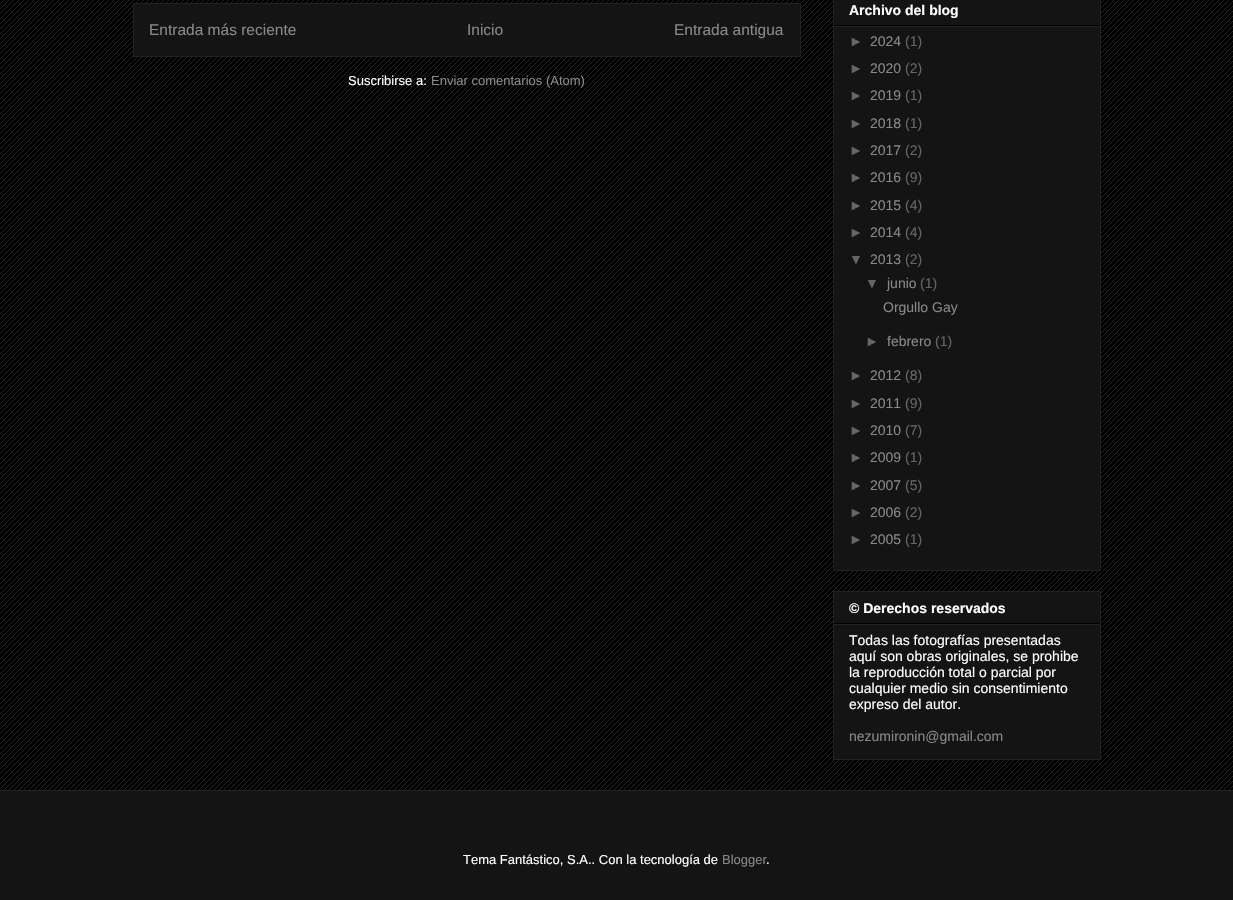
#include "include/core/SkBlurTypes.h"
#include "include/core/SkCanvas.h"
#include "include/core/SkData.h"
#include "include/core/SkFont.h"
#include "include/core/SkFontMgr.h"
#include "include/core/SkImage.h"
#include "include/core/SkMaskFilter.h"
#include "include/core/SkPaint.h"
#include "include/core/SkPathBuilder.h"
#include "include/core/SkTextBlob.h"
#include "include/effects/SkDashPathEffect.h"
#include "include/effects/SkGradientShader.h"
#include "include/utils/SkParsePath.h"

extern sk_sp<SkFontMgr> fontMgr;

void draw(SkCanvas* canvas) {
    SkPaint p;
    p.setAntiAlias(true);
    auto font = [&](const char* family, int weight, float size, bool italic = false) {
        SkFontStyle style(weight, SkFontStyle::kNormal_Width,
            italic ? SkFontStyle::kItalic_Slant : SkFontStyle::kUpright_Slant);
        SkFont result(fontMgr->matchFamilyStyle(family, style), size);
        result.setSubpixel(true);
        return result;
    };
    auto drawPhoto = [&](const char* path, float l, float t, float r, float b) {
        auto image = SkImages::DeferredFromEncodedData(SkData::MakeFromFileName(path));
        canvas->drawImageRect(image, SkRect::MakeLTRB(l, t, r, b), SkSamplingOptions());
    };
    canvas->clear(0xFF000000);
    drawPhoto("media/1.png", 0, 0, 1233, 790);
    p.setColor(0xFF141414);
    canvas->drawRect(SkRect::MakeLTRB(133.5f, 3.5f, 800.5f, 56.5f), p);
    p.setStyle(SkPaint::kStroke_Style);
    p.setStrokeWidth(1);
    p.setColor(0xFF222222);
    canvas->drawRect(SkRect::MakeLTRB(133.5f, 3.5f, 800.5f, 56.5f), p);
    auto font1 = font("Liberation Sans", 400, 15.5f);
    p.setStyle(SkPaint::kFill_Style);
    p.setColor(0xFF888888);
    {
        const struct { const char* s; float x, y; } items[] = {
            {"Entrada más reciente", 149, 35},
            {"Inicio", 467, 35},
            {"Entrada antigua", 674, 35},
        };
        for (auto [s, x, y] : items) {
            canvas->drawString(s, x, y, font1, p);
        }
    }
    auto font2 = font("Liberation Sans", 400, 13);
    p.setColor(0xFFFFFFFF);
    canvas->drawString("Suscribirse a:", 348, 85, font2, p);
    p.setColor(0xFF888888);
    canvas->drawString("Enviar comentarios (Atom)", 431, 85, font2, p);
    p.setColor(0xFF141414);
    canvas->drawRect(SkRect::MakeLTRB(833.5f, -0.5f, 1100.5f, 570.5f), p);
    p.setStyle(SkPaint::kStroke_Style);
    p.setColor(0xFF222222);
    canvas->drawRect(SkRect::MakeLTRB(833.5f, -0.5f, 1100.5f, 570.5f), p);
    p.setStyle(SkPaint::kFill_Style);
    p.setColor(0xFF000000);
    canvas->drawRect(SkRect::MakeLTRB(834, 25, 1100, 26), p);
    auto font3 = font("Liberation Sans", 700, 14);
    p.setColor(0xFFFFFFFF);
    canvas->drawString("Archivo del blog", 849, 15, font3, p);
    p.setColor(0xFF222222);
    canvas->drawRect(SkRect::MakeLTRB(834, 26, 1100, 27), p);
    auto font4 = font("Liberation Sans", 400, 14);
    p.setColor(0xFF666666);
    canvas->drawString("►", 849, 46, font4, p);
    p.setColor(0xFF888888);
    canvas->drawString("2024", 870, 46, font4, p);
    p.setColor(0xFF666666);
    canvas->drawString("(1)", 905, 46, font4, p);
    canvas->drawString("►", 849, 73, font4, p);
    p.setColor(0xFF888888);
    canvas->drawString("2020", 870, 73, font4, p);
    p.setColor(0xFF666666);
    canvas->drawString("(2)", 905, 73, font4, p);
    canvas->drawString("►", 849, 100, font4, p);
    p.setColor(0xFF888888);
    canvas->drawString("2019", 870, 100, font4, p);
    p.setColor(0xFF666666);
    canvas->drawString("(1)", 905, 100, font4, p);
    canvas->drawString("►", 849, 128, font4, p);
    p.setColor(0xFF888888);
    canvas->drawString("2018", 870, 128, font4, p);
    p.setColor(0xFF666666);
    canvas->drawString("(1)", 905, 128, font4, p);
    canvas->drawString("►", 849, 155, font4, p);
    p.setColor(0xFF888888);
    canvas->drawString("2017", 870, 155, font4, p);
    p.setColor(0xFF666666);
    canvas->drawString("(2)", 905, 155, font4, p);
    canvas->drawString("►", 849, 182, font4, p);
    p.setColor(0xFF888888);
    canvas->drawString("2016", 870, 182, font4, p);
    p.setColor(0xFF666666);
    canvas->drawString("(9)", 905, 182, font4, p);
    canvas->drawString("►", 849, 210, font4, p);
    p.setColor(0xFF888888);
    canvas->drawString("2015", 870, 210, font4, p);
    p.setColor(0xFF666666);
    canvas->drawString("(4)", 905, 210, font4, p);
    canvas->drawString("►", 849, 237, font4, p);
    p.setColor(0xFF888888);
    canvas->drawString("2014", 870, 237, font4, p);
    p.setColor(0xFF666666);
    canvas->drawString("(4)", 905, 237, font4, p);
    canvas->drawString("▼", 849, 264, font4, p);
    p.setColor(0xFF888888);
    canvas->drawString("2013", 870, 264, font4, p);
    p.setColor(0xFF666666);
    canvas->drawString("(2)", 905, 264, font4, p);
    canvas->drawString("▼", 865, 288, font4, p);
    p.setColor(0xFF888888);
    canvas->drawString("junio", 887, 288, font4, p);
    p.setColor(0xFF666666);
    canvas->drawString("(1)", 920, 288, font4, p);
    p.setColor(0xFF888888);
    canvas->drawString("Orgullo Gay", 883, 312, font4, p);
    p.setColor(0xFF666666);
    canvas->drawString("►", 865, 346, font4, p);
    p.setColor(0xFF888888);
    canvas->drawString("febrero", 887, 346, font4, p);
    p.setColor(0xFF666666);
    canvas->drawString("(1)", 935, 346, font4, p);
    canvas->drawString("►", 849, 380, font4, p);
    p.setColor(0xFF888888);
    canvas->drawString("2012", 870, 380, font4, p);
    p.setColor(0xFF666666);
    canvas->drawString("(8)", 905, 380, font4, p);
    canvas->drawString("►", 849, 408, font4, p);
    p.setColor(0xFF888888);
    canvas->drawString("2011", 870, 408, font4, p);
    p.setColor(0xFF666666);
    canvas->drawString("(9)", 905, 408, font4, p);
    canvas->drawString("►", 849, 435, font4, p);
    p.setColor(0xFF888888);
    canvas->drawString("2010", 870, 435, font4, p);
    p.setColor(0xFF666666);
    canvas->drawString("(7)", 905, 435, font4, p);
    canvas->drawString("►", 849, 462, font4, p);
    p.setColor(0xFF888888);
    canvas->drawString("2009", 870, 462, font4, p);
    p.setColor(0xFF666666);
    canvas->drawString("(1)", 905, 462, font4, p);
    canvas->drawString("►", 849, 490, font4, p);
    p.setColor(0xFF888888);
    canvas->drawString("2007", 870, 490, font4, p);
    p.setColor(0xFF666666);
    canvas->drawString("(5)", 905, 490, font4, p);
    canvas->drawString("►", 849, 517, font4, p);
    p.setColor(0xFF888888);
    canvas->drawString("2006", 870, 517, font4, p);
    p.setColor(0xFF666666);
    canvas->drawString("(2)", 905, 517, font4, p);
    canvas->drawString("►", 849, 544, font4, p);
    p.setColor(0xFF888888);
    canvas->drawString("2005", 870, 544, font4, p);
    p.setColor(0xFF666666);
    canvas->drawString("(1)", 905, 544, font4, p);
    p.setColor(0xFF141414);
    canvas->drawRect(SkRect::MakeLTRB(833.5f, 591.5f, 1100.5f, 759.5f), p);
    p.setStyle(SkPaint::kStroke_Style);
    p.setColor(0xFF222222);
    canvas->drawRect(SkRect::MakeLTRB(833.5f, 591.5f, 1100.5f, 759.5f), p);
    p.setStyle(SkPaint::kFill_Style);
    p.setColor(0xFF000000);
    canvas->drawRect(SkRect::MakeLTRB(834, 623, 1100, 624), p);
    p.setColor(0xFFFFFFFF);
    canvas->drawString("© Derechos reservados", 849, 613, font3, p);
    p.setColor(0xFF222222);
    canvas->drawRect(SkRect::MakeLTRB(834, 624, 1100, 625), p);
    p.setColor(0xFFFFFFFF);
    {
        const struct { const char* s; float x, y; } items[] = {
            {"Todas las fotografías presentadas", 849, 645},
            {"aquí son obras originales, se prohibe", 849, 661},
            {"la reproducción total o parcial por", 849, 677},
            {"cualquier medio sin consentimiento", 849, 693},
            {"expreso del autor.", 849, 709},
        };
        for (auto [s, x, y] : items) {
            canvas->drawString(s, x, y, font4, p);
        }
    }
    p.setColor(0xFF888888);
    canvas->drawString("nezumironin@gmail.com", 849, 741, font4, p);
    p.setColor(0xFF141414);
    canvas->drawRect(SkRect::MakeLTRB(0, 791, 1233, 900), p);
    p.setColor(0xFF222222);
    canvas->drawRect(SkRect::MakeLTRB(0, 790, 1233, 791), p);
    p.setColor(0xFFFFFFFF);
    canvas->drawString("Tema Fantástico, S.A.. Con la tecnología de", 463, 864, font2, p);
    p.setColor(0xFF888888);
    canvas->drawString("Blogger", 722, 864, font2, p);
    p.setColor(0xFFFFFFFF);
    canvas->drawString(".", 766, 864, font2, p);
}
